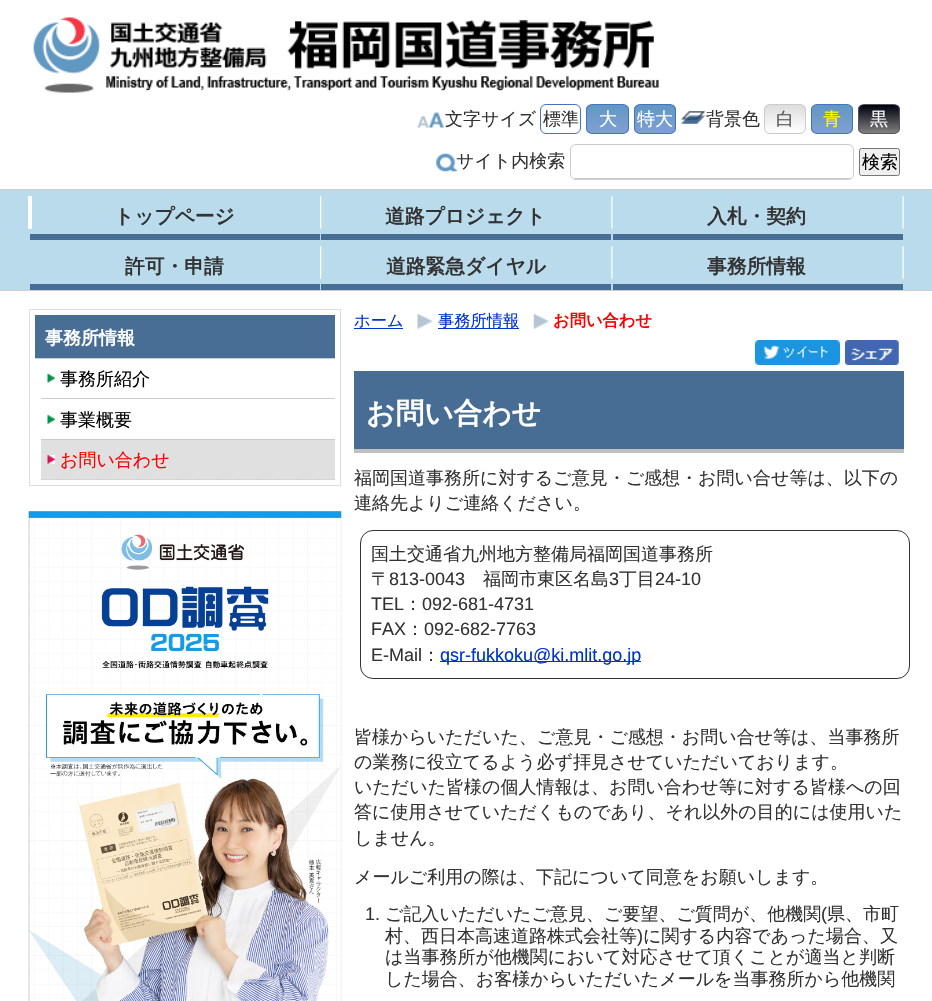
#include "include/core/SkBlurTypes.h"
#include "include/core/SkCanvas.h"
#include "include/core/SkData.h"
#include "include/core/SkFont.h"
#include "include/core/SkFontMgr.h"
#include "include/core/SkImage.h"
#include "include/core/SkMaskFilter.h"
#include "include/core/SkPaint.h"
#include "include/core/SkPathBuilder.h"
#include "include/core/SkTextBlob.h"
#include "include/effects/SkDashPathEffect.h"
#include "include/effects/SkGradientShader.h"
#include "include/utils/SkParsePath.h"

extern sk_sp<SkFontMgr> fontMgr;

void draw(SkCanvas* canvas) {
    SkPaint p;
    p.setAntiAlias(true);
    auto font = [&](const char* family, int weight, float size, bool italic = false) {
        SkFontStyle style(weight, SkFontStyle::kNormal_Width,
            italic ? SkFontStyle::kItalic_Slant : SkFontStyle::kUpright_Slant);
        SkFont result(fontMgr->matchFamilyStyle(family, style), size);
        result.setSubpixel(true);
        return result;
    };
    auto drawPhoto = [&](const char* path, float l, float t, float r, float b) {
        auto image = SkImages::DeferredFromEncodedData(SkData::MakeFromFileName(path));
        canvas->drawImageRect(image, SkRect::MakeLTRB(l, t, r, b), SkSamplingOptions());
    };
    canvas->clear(0xFFFFFFFF);
    drawPhoto("media/1.png", 33, 17, 659, 93);
    drawPhoto("media/2.png", 417, 112, 444, 128);
    auto font1 = font("WenQuanYi Zen Hei", 500, 18);
    p.setColor(0xFF333333);
    canvas->drawString("文字サイズ", 445, 125, font1, p);
    p.setStyle(SkPaint::kStroke_Style);
    p.setStrokeWidth(1);
    p.setColor(0xFF4573BF);
    canvas->drawRoundRect(SkRect::MakeLTRB(540.5f, 104.5f, 580.5f, 133.5f), 5.5f, 5.5f, p);
    p.setStyle(SkPaint::kFill_Style);
    p.setColor(0xFF333333);
    canvas->drawString("標準", 543, 125, font1, p);
    canvas->save();
    canvas->clipPath(SkPathBuilder().moveTo(592, 104).lineTo(623, 104).cubicTo(626.5f, 104, 629, 106.5f, 629, 110).lineTo(629, 128).cubicTo(629, 131.5f, 626.5f, 134, 623, 134).lineTo(592, 134).cubicTo(588.5f, 134, 586, 131.5f, 586, 128).lineTo(586, 110).cubicTo(586, 106.5f, 588.5f, 104, 592, 104).close().detach(), true);
    {
        const SkColor colors[] = {0xFF6198C2, 0xFF809FD3};
        const float stops[] = {0, 1};
        const SkPoint ends[] = {{608, 105}, {608, 133}};
        p.setShader(SkGradientShader::MakeLinear(ends, colors, stops, 2, SkTileMode::kClamp));
        p.setAlpha(255);
    }
    canvas->drawRect(SkRect::MakeLTRB(586, 105, 629, 133), p);
    canvas->restore();
    p.setStyle(SkPaint::kStroke_Style);
    p.setShader(nullptr);
    p.setColor(0xFF4573BF);
    canvas->drawRoundRect(SkRect::MakeLTRB(586.5f, 104.5f, 628.5f, 133.5f), 5.5f, 5.5f, p);
    p.setStyle(SkPaint::kFill_Style);
    p.setColor(0xFFFFFFFF);
    canvas->drawString("大", 599, 125, font1, p);
    canvas->save();
    canvas->clipPath(SkPathBuilder().moveTo(640, 104).lineTo(670, 104).cubicTo(673.5f, 104, 676, 106.5f, 676, 110).lineTo(676, 128).cubicTo(676, 131.5f, 673.5f, 134, 670, 134).lineTo(640, 134).cubicTo(636.5f, 134, 634, 131.5f, 634, 128).lineTo(634, 110).cubicTo(634, 106.5f, 636.5f, 104, 640, 104).close().detach(), true);
    {
        const SkColor colors[] = {0xFF6198C2, 0xFF809FD3};
        const float stops[] = {0, 1};
        const SkPoint ends[] = {{655, 105}, {655, 133}};
        p.setShader(SkGradientShader::MakeLinear(ends, colors, stops, 2, SkTileMode::kClamp));
        p.setAlpha(255);
    }
    canvas->drawRect(SkRect::MakeLTRB(634, 105, 676, 133), p);
    canvas->restore();
    p.setStyle(SkPaint::kStroke_Style);
    p.setShader(nullptr);
    p.setColor(0xFF4573BF);
    canvas->drawRoundRect(SkRect::MakeLTRB(634.5f, 104.5f, 675.5f, 133.5f), 5.5f, 5.5f, p);
    p.setStyle(SkPaint::kFill_Style);
    p.setColor(0xFFFFFFFF);
    canvas->drawString("特大", 637, 125, font1, p);
    drawPhoto("media/3.png", 681, 111, 705, 124);
    p.setColor(0xFF333333);
    canvas->drawString("背景色", 706, 125, font1, p);
    canvas->save();
    canvas->clipPath(SkPathBuilder().moveTo(770, 104).lineTo(800, 104).cubicTo(803.5f, 104, 806, 106.5f, 806, 110).lineTo(806, 128).cubicTo(806, 131.5f, 803.5f, 134, 800, 134).lineTo(770, 134).cubicTo(766.5f, 134, 764, 131.5f, 764, 128).lineTo(764, 110).cubicTo(764, 106.5f, 766.5f, 104, 770, 104).close().detach(), true);
    {
        const SkColor colors[] = {0xFFDDDDDD, 0xFFFFFFFF};
        const float stops[] = {0, 1};
        const SkPoint ends[] = {{785, 105}, {785, 133}};
        p.setShader(SkGradientShader::MakeLinear(ends, colors, stops, 2, SkTileMode::kClamp));
        p.setAlpha(255);
    }
    canvas->drawRect(SkRect::MakeLTRB(764, 105, 806, 133), p);
    canvas->restore();
    p.setStyle(SkPaint::kStroke_Style);
    p.setShader(nullptr);
    p.setColor(0xFFCCCCCC);
    canvas->drawRoundRect(SkRect::MakeLTRB(764.5f, 104.5f, 805.5f, 133.5f), 5.5f, 5.5f, p);
    p.setStyle(SkPaint::kFill_Style);
    p.setColor(0xFF555555);
    canvas->drawString("白", 776, 125, font1, p);
    canvas->save();
    canvas->clipPath(SkPathBuilder().moveTo(817, 104).lineTo(847, 104).cubicTo(850.5f, 104, 853, 106.5f, 853, 110).lineTo(853, 128).cubicTo(853, 131.5f, 850.5f, 134, 847, 134).lineTo(817, 134).cubicTo(813.5f, 134, 811, 131.5f, 811, 128).lineTo(811, 110).cubicTo(811, 106.5f, 813.5f, 104, 817, 104).close().detach(), true);
    {
        const SkColor colors[] = {0xFF6198C2, 0xFF809FD3};
        const float stops[] = {0, 1};
        const SkPoint ends[] = {{832, 105}, {832, 133}};
        p.setShader(SkGradientShader::MakeLinear(ends, colors, stops, 2, SkTileMode::kClamp));
        p.setAlpha(255);
    }
    canvas->drawRect(SkRect::MakeLTRB(811, 105, 853, 133), p);
    canvas->restore();
    p.setStyle(SkPaint::kStroke_Style);
    p.setShader(nullptr);
    p.setColor(0xFF4573BF);
    canvas->drawRoundRect(SkRect::MakeLTRB(811.5f, 104.5f, 852.5f, 133.5f), 5.5f, 5.5f, p);
    p.setStyle(SkPaint::kFill_Style);
    p.setColor(0xFFFFFF00);
    canvas->drawString("青", 823, 125, font1, p);
    canvas->save();
    canvas->clipPath(SkPathBuilder().moveTo(864, 104).lineTo(894, 104).cubicTo(897.5f, 104, 900, 106.5f, 900, 110).lineTo(900, 128).cubicTo(900, 131.5f, 897.5f, 134, 894, 134).lineTo(864, 134).cubicTo(860.5f, 134, 858, 131.5f, 858, 128).lineTo(858, 110).cubicTo(858, 106.5f, 860.5f, 104, 864, 104).close().detach(), true);
    {
        const SkColor colors[] = {0xFF00000F, 0xFF808080};
        const float stops[] = {0, 1};
        const SkPoint ends[] = {{879, 105}, {879, 133}};
        p.setShader(SkGradientShader::MakeLinear(ends, colors, stops, 2, SkTileMode::kClamp));
        p.setAlpha(255);
    }
    canvas->drawRect(SkRect::MakeLTRB(858, 105, 900, 133), p);
    canvas->restore();
    p.setStyle(SkPaint::kStroke_Style);
    p.setShader(nullptr);
    p.setColor(0xFF555555);
    canvas->drawRoundRect(SkRect::MakeLTRB(858.5f, 104.5f, 899.5f, 133.5f), 5.5f, 5.5f, p);
    p.setStyle(SkPaint::kFill_Style);
    p.setColor(0xFFFFFFFF);
    canvas->drawString("黒", 870, 125, font1, p);
    drawPhoto("media/4.png", 436, 153, 458, 172);
    p.setColor(0xFF333333);
    canvas->drawString("サイト内検索", 456, 167, font1, p);
    p.setStyle(SkPaint::kStroke_Style);
    p.setColor(0xFFCCCCCC);
    canvas->drawRoundRect(SkRect::MakeLTRB(570.5f, 144.5f, 853.5f, 179.5f), 5.5f, 5.5f, p);
    p.setStyle(SkPaint::kFill_Style);
    canvas->drawRect(SkRect::MakeLTRB(574, 178, 851, 179), p);
    p.setColor(0xFFEFEFEF);
    canvas->drawRoundRect(SkRect::MakeLTRB(859.5f, 148.5f, 899.5f, 175.5f), 2, 2, p);
    p.setStyle(SkPaint::kStroke_Style);
    p.setColor(0xFF767676);
    canvas->drawRoundRect(SkRect::MakeLTRB(859.5f, 148.5f, 899.5f, 175.5f), 2, 2, p);
    p.setStyle(SkPaint::kFill_Style);
    p.setColor(0xFF000000);
    canvas->drawString("検索", 862, 168, font1, p);
    {
        const struct { float l, t, r, b; SkColor color; } items[] = {
            {0, 190, 932, 290, 0xFFBADBEC},
            {0, 189, 932, 190, 0xFFCCCCCC},
            {0, 290, 932, 291, 0xFFCCCCCC},
            {28, 196, 32, 229, 0xFFFFFFFF},
        };
        for (auto [l, t, r, b, color] : items) {
            p.setColor(color);
            canvas->drawRect(SkRect::MakeLTRB(l, t, r, b), p);
        }
    }
    drawPhoto("media/5.png", 320, 196, 322, 229);
    p.setColor(0xFF486E95);
    canvas->drawRect(SkRect::MakeLTRB(30, 234, 320, 240), p);
    auto font2 = font("WenQuanYi Zen Hei", 700, 19.75f);
    p.setColor(0xFF333333);
    canvas->drawString("トップページ", 114, 223, font2, p);
    drawPhoto("media/6.png", 611, 196, 613, 229);
    p.setColor(0xFF486E95);
    canvas->drawRect(SkRect::MakeLTRB(321, 234, 611, 240), p);
    p.setColor(0xFF333333);
    canvas->drawString("道路プロジェクト", 385, 223, font2, p);
    drawPhoto("media/7.png", 902, 196, 904, 229);
    p.setColor(0xFF486E95);
    canvas->drawRect(SkRect::MakeLTRB(613, 234, 903, 240), p);
    p.setColor(0xFF333333);
    canvas->drawString("入札・契約", 707, 223, font2, p);
    drawPhoto("media/5.png", 320, 246, 322, 279);
    p.setColor(0xFF486E95);
    canvas->drawRect(SkRect::MakeLTRB(30, 284, 320, 290), p);
    p.setColor(0xFF333333);
    canvas->drawString("許可・申請", 125, 273, font2, p);
    drawPhoto("media/6.png", 611, 246, 613, 279);
    p.setColor(0xFF486E95);
    canvas->drawRect(SkRect::MakeLTRB(321, 284, 611, 290), p);
    p.setColor(0xFF333333);
    canvas->drawString("道路緊急ダイヤル", 386, 273, font2, p);
    drawPhoto("media/7.png", 902, 246, 904, 279);
    p.setColor(0xFF486E95);
    canvas->drawRect(SkRect::MakeLTRB(613, 284, 903, 290), p);
    p.setColor(0xFF333333);
    canvas->drawString("事務所情報", 707, 273, font2, p);
    p.setStyle(SkPaint::kStroke_Style);
    p.setColor(0xFFDDDDDD);
    canvas->drawRect(SkRect::MakeLTRB(29.5f, 309.5f, 340.5f, 485.5f), p);
    p.setStyle(SkPaint::kFill_Style);
    p.setColor(0xFF486E95);
    canvas->drawRect(SkRect::MakeLTRB(35, 315, 335, 358), p);
    p.setColor(0xFFCCCCCC);
    canvas->drawRect(SkRect::MakeLTRB(35, 358, 335, 359), p);
    auto font3 = font("WenQuanYi Zen Hei", 700, 18);
    p.setColor(0xFFFFFFFF);
    canvas->drawString("事務所情報", 45, 344, font3, p);
    drawPhoto("media/8.png", 47, 373, 55, 383);
    p.setColor(0xFFCCCCCC);
    canvas->drawRect(SkRect::MakeLTRB(41, 398, 335, 399), p);
    p.setColor(0xFF000000);
    canvas->drawString("事務所紹介", 60, 385, font1, p);
    drawPhoto("media/9.png", 47, 415, 55, 424);
    p.setColor(0xFFCCCCCC);
    canvas->drawRect(SkRect::MakeLTRB(41, 439, 335, 440), p);
    p.setColor(0xFF000000);
    canvas->drawString("事業概要", 60, 426, font1, p);
    p.setColor(0xFFE0E0E0);
    canvas->drawRect(SkRect::MakeLTRB(41, 440, 335, 480), p);
    drawPhoto("media/10.png", 47, 455, 55, 464);
    p.setStyle(SkPaint::kStroke_Style);
    p.setStrokeWidth(1.2f);
    p.setColor(0xFFCCCCCC);
    p.setPathEffect(SkDashPathEffect::Make({{1.25f, 1.25f}}, 0));
    canvas->drawPath(SkPathBuilder().moveTo(41, 479.5f).lineTo(335, 479.5f).detach(), p);
    p.setPathEffect(nullptr);
    p.setStyle(SkPaint::kFill_Style);
    p.setColor(0xFFFF0000);
    canvas->drawString("お問い合わせ", 60, 466, font1, p);
    drawPhoto("media/11.png", 28, 511, 342, 1001);
    auto font4 = font("WenQuanYi Zen Hei", 500, 16.25f);
    p.setColor(0xFF0033CC);
    canvas->drawString("ホーム", 354, 326, font4, p);
    canvas->drawRect(SkRect::MakeLTRB(354, 328, 403, 329), p);
    drawPhoto("media/12.png", 417, 313, 433, 329);
    canvas->drawRect(SkRect::MakeLTRB(438, 328, 519, 329), p);
    canvas->drawString("事務所情報", 438, 326, font4, p);
    drawPhoto("media/13.png", 533, 313, 549, 329);
    auto font5 = font("WenQuanYi Zen Hei", 700, 16.25f);
    p.setColor(0xFFFF0000);
    canvas->drawString("お問い合わせ", 553, 326, font5, p);
    drawPhoto("media/14.png", 755, 340, 840, 365);
    drawPhoto("media/15.png", 845, 340, 899, 365);
    p.setColor(0xFF486D94);
    canvas->drawRect(SkRect::MakeLTRB(354, 371, 904, 449), p);
    p.setColor(0xFFC0C0C0);
    canvas->drawRect(SkRect::MakeLTRB(354, 449, 904, 453), p);
    auto font6 = font("WenQuanYi Zen Hei", 700, 28.75f);
    p.setColor(0xFFFFFFFF);
    canvas->drawString("お問い合わせ", 366, 423, font6, p);
    p.setColor(0xFF333333);
    canvas->drawString("福岡国道事務所に対するご意見・ご感想・お問い合せ等は、以下の", 354, 484, font1, p);
    canvas->drawString("連絡先よりご連絡ください。", 354, 509, font1, p);
    p.setStyle(SkPaint::kStroke_Style);
    p.setStrokeWidth(1);
    canvas->drawRoundRect(SkRect::MakeLTRB(360.5f, 530.5f, 909.5f, 678.5f), 12.5f, 12.5f, p);
    p.setStyle(SkPaint::kFill_Style);
    canvas->drawString("国土交通省九州地方整備局福岡国道事務所", 371, 560, font1, p);
    canvas->drawString("〒", 371, 585, font1, p);
    auto font7 = font("Liberation Sans", 400, 18);
    canvas->drawString("813-0043", 389, 585, font7, p);
    canvas->drawString("福岡市東区名島", 483, 585, font1, p);
    canvas->drawString("3", 609, 585, font7, p);
    canvas->drawString("丁目", 619, 585, font1, p);
    canvas->drawString("24-10", 655, 585, font7, p);
    canvas->drawString("TEL", 371, 610, font7, p);
    canvas->drawString("：", 404, 610, font1, p);
    canvas->drawString("092-681-4731", 422, 610, font7, p);
    canvas->drawString("FAX", 371, 635, font7, p);
    canvas->drawString("：", 406, 635, font1, p);
    canvas->drawString("092-682-7763", 424, 635, font7, p);
    canvas->drawString("E-Mail", 371, 661, font7, p);
    canvas->drawString("：", 422, 661, font1, p);
    p.setColor(0xFF0033CC);
    canvas->drawRect(SkRect::MakeLTRB(440, 661, 641, 662), p);
    canvas->drawString("qsr-fukkoku@ki.mlit.go.jp", 440, 661, font7, p);
    p.setColor(0xFF333333);
    {
        const struct { const char* s; float x, y; } items[] = {
            {"皆様からいただいた、ご意見・ご感想・お問い合せ等は、当事務所", 354, 743},
            {"の業務に役立てるよう必ず拝見させていただいております。", 354, 768},
            {"いただいた皆様の個人情報は、お問い合わせ等に対する皆様への回", 354, 793},
            {"答に使用させていただくものであり、それ以外の目的には使用いた", 354, 818},
            {"しません。", 354, 844},
            {"メールご利用の際は、下記について同意をお願いします。", 354, 883},
        };
        for (auto [s, x, y] : items) {
            canvas->drawString(s, x, y, font1, p);
        }
    }
    canvas->drawString("1.", 365, 920, font7, p);
    canvas->drawString("ご記入いただいたご意見、ご要望、ご質問が、他機関", 385, 920, font1, p);
    canvas->drawString("(", 821, 920, font7, p);
    canvas->drawString("県、市町", 827, 920, font1, p);
    canvas->drawString("村、西日本高速道路株式会社等", 385, 942, font1, p);
    canvas->drawString(")", 637, 942, font7, p);
    {
        const struct { const char* s; float x, y; } items[] = {
            {"に関する内容であった場合、又", 643, 942},
            {"は当事務所が他機関において対応させて頂くことが適当と判断", 385, 963},
            {"した場合、お客様からいただいたメールを当事務所から他機関", 385, 985},
        };
        for (auto [s, x, y] : items) {
            canvas->drawString(s, x, y, font1, p);
        }
    }
}
